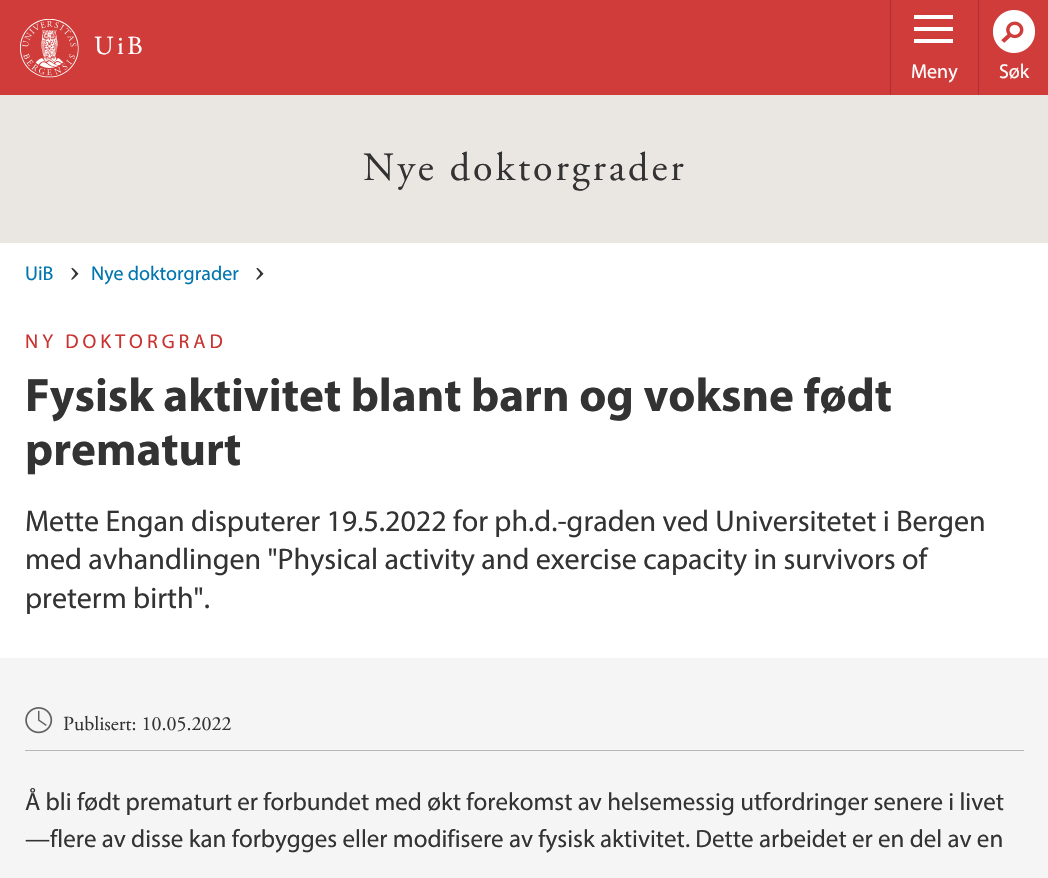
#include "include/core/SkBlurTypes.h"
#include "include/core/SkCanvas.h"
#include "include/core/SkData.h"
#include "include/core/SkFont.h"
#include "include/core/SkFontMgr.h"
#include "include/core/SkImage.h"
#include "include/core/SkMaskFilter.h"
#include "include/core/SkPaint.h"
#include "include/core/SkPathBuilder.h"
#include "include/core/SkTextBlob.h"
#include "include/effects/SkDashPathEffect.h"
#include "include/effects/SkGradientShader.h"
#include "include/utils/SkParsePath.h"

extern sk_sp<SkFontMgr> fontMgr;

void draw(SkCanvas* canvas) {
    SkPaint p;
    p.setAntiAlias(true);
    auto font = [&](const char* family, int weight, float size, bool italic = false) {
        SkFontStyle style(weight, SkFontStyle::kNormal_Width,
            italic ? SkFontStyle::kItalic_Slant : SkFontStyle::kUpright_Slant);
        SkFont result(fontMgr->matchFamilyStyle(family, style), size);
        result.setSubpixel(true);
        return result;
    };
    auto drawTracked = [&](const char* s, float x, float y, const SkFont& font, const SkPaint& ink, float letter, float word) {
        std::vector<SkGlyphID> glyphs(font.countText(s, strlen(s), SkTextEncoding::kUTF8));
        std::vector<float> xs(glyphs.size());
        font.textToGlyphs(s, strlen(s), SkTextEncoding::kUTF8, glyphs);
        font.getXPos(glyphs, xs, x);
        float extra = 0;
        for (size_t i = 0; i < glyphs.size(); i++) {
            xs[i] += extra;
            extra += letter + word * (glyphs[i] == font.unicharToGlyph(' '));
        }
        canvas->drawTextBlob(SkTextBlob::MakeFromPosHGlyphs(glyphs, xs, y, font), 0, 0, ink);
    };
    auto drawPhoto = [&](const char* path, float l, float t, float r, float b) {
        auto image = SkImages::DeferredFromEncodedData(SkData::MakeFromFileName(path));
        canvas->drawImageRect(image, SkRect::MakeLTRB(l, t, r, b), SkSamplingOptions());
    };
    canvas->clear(0xFFFFFFFF);
    p.setColor(0xFFCF3C3A);
    canvas->drawRect(SkRect::MakeLTRB(0, 0, 1048, 95), p);
    drawPhoto("media/1.png", 20, 19, 79, 78);
    auto font1 = font("Adobe Garamond", 400, 26);
    p.setColor(0xFFFFFFFF);
    drawTracked("UiB", 94, 54, font1, p, 3.5f, 0);
    {
        const struct { float l, t, r, b; SkColor color; } items[] = {
            {914, 15, 953, 19, 0xFFFFFFFF},
            {914, 27, 953, 31, 0xFFFFFFFF},
            {914, 39, 953, 43, 0xFFFFFFFF},
            {978, 0, 979, 95, 0xFFAE2F2F},
            {890, 0, 891, 95, 0xFFAE2F2F},
        };
        for (auto [l, t, r, b, color] : items) {
            p.setColor(color);
            canvas->drawRect(SkRect::MakeLTRB(l, t, r, b), p);
        }
    }
    auto font2 = font("Myriad", 400, 20);
    p.setColor(0xFFFFFFFF);
    canvas->drawString("Meny", 911, 78, font2, p);
    drawPhoto("media/2.png", 993, 10, 1035, 53);
    canvas->drawString("Søk", 999, 78, font2, p);
    p.setColor(0xFFEAE6E2);
    canvas->drawRect(SkRect::MakeLTRB(0, 95, 1048, 243), p);
    auto font3 = font("Adobe Garamond", 400, 40);
    p.setColor(0xFF333333);
    drawTracked("Nye doktorgrader", 363, 180, font3, p, 3, 0);
    p.setColor(0xFF0075AF);
    canvas->drawString("UiB", 25, 280, font2, p);
    drawPhoto("media/3.png", 71, 268, 79, 280);
    canvas->drawString("Nye doktorgrader", 91, 280, font2, p);
    drawPhoto("media/3.png", 256, 268, 264, 280);
    p.setColor(0xFFC93331);
    drawTracked("NY DOKTORGRAD", 25, 348, font2, p, 4, 0);
    auto font4 = font("Myriad", 700, 47.1f);
    p.setColor(0xFF333333);
    canvas->drawString("Fysisk aktivitet blant barn og voksne født", 25, 411, font4, p);
    canvas->drawString("prematurt", 25, 465, font4, p);
    auto font5 = font("Myriad", 400, 30);
    {
        const struct { const char* s; float x, y; } items[] = {
            {"Mette Engan disputerer 19.5.2022 for ph.d.-graden ved Universitetet i Bergen", 25, 531},
            {"med avhandlingen \"Physical activity and exercise capacity in survivors of", 25, 569},
            {"preterm birth\".", 25, 608},
        };
        for (auto [s, x, y] : items) {
            canvas->drawString(s, x, y, font5, p);
        }
    }
    p.setColor(0xFFF5F5F5);
    canvas->drawRect(SkRect::MakeLTRB(0, 658, 1048, 878), p);
    p.setColor(0xFFB7B7B7);
    canvas->drawRect(SkRect::MakeLTRB(25, 750, 1024, 751), p);
    drawPhoto("media/4.png", 25, 707, 53, 734);
    auto font6 = font("Adobe Garamond", 400, 20);
    p.setColor(0xFF333333);
    canvas->drawString("Publisert: 10.05.2022", 63, 730, font6, p);
    auto font7 = font("Myriad", 400, 25);
    canvas->drawString("Å bli født prematurt er forbundet med økt forekomst av helsemessig utfordringer senere i livet", 25, 810, font7, p);
    canvas->drawString("—flere av disse kan forbygges eller modifisere av fysisk aktivitet. Dette arbeidet er en del av en", 25, 847, font7, p);
}
